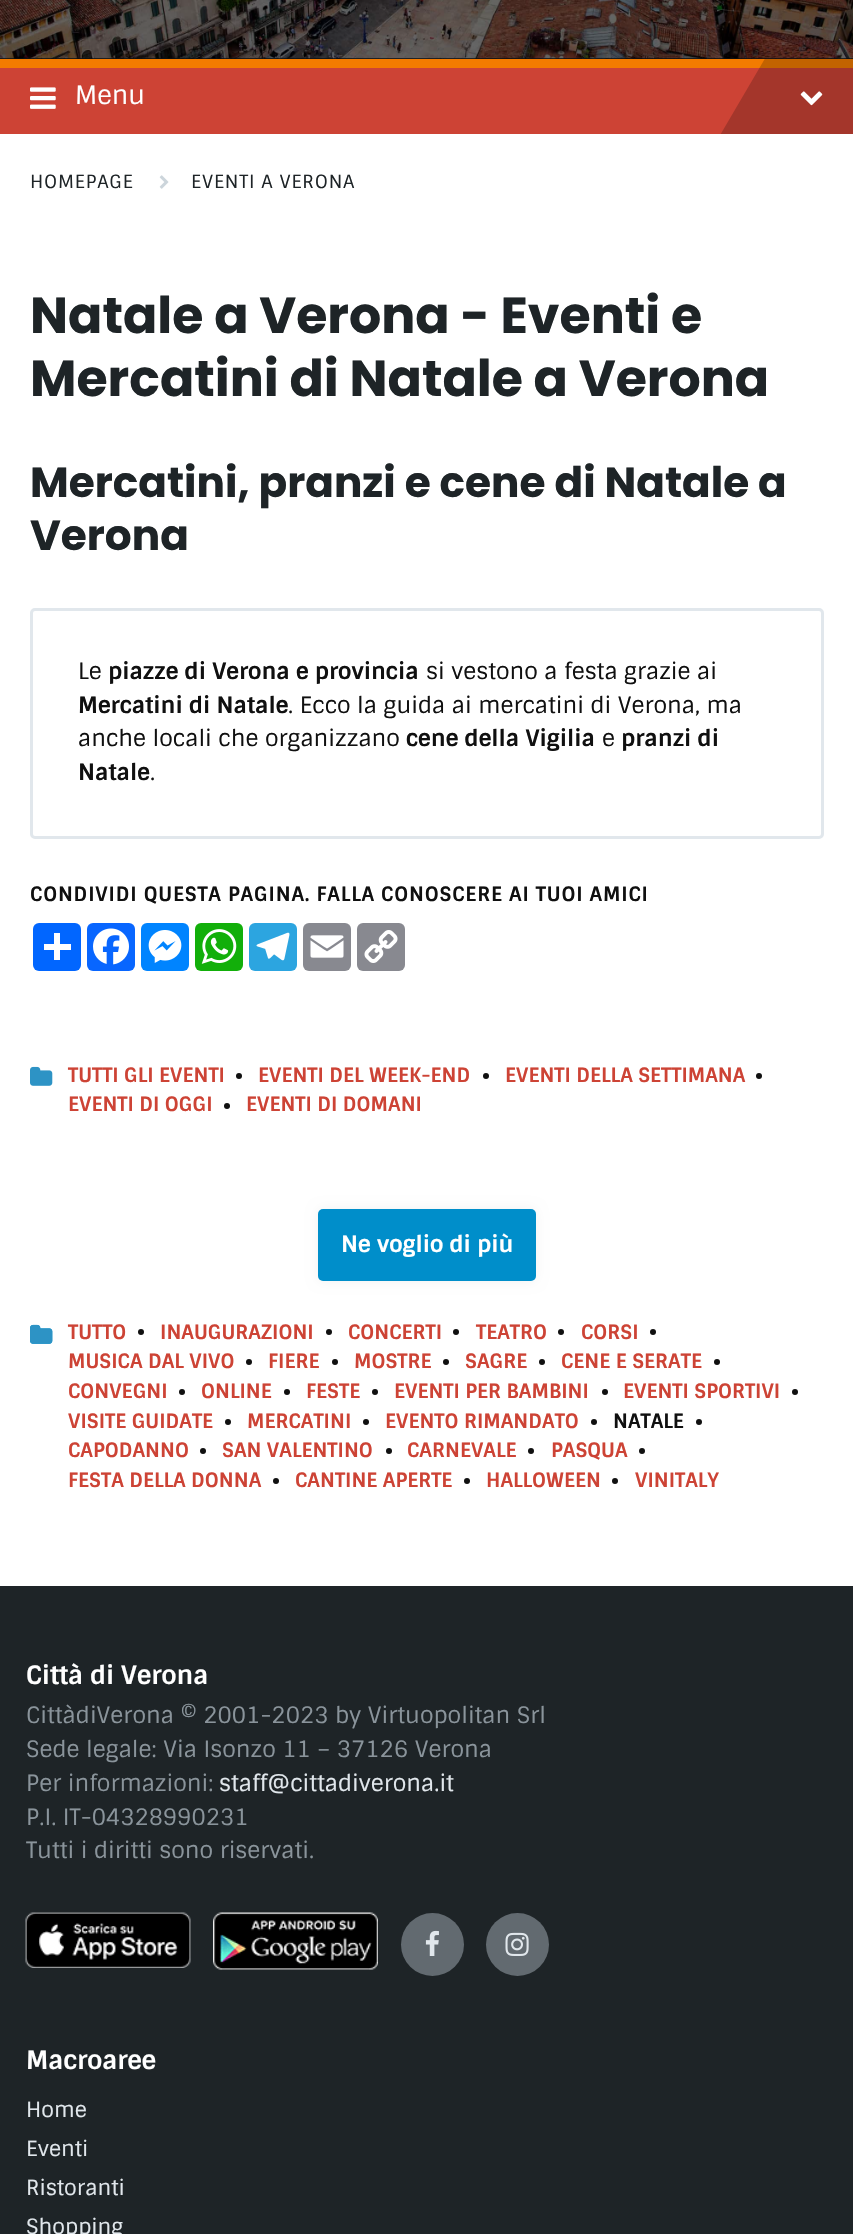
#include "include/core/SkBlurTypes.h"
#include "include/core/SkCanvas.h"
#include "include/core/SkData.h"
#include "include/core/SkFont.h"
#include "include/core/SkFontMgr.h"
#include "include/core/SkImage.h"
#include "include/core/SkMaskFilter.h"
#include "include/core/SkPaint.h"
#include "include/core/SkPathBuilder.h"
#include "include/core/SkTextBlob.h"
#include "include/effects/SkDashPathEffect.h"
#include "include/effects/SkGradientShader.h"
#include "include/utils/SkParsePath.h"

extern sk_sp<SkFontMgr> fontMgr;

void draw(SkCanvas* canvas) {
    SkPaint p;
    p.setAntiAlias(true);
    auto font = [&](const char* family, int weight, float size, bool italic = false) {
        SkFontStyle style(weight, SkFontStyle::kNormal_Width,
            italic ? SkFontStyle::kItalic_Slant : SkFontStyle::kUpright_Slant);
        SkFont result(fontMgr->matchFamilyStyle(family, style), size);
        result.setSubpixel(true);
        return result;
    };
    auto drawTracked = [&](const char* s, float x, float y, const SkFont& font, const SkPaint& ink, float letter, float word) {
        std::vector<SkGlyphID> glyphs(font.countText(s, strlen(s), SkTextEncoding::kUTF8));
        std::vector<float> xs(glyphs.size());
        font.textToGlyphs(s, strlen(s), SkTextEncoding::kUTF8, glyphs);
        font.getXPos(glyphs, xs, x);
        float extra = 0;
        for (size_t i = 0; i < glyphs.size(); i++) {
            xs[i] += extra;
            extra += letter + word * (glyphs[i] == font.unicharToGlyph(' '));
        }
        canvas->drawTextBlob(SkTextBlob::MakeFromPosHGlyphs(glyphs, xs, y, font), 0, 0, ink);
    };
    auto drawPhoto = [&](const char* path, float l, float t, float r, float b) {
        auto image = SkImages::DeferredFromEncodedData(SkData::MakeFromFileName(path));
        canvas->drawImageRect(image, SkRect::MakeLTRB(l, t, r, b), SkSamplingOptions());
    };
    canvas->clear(0xFFFFFFFF);
    p.setColor(0xFF0C0E10);
    canvas->drawRect(SkRect::MakeLTRB(0, 58, 853, 59), p);
    p.setColor(0xFFF37B00);
    canvas->drawRect(SkRect::MakeLTRB(0, 59, 853, 68), p);
    drawPhoto("media/1.png", 0, 0, 853, 59);
    p.setColor(0xFFCD4335);
    canvas->drawRect(SkRect::MakeLTRB(0, 68, 853, 134), p);
    drawPhoto("media/2.png", 30, 87, 56, 109);
    auto font1 = font("Sintony", 400, 25.25f);
    p.setColor(0xFFFFFFFF);
    canvas->drawString("Menu", 75, 104, font1, p);
    canvas->save();
    canvas->clipRect(SkRect::MakeLTRB(0, 59, 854, 134));
    p.setColor(0x33000000);
    canvas->drawPath(SkPathBuilder().moveTo(794, 9).lineTo(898, 69).lineTo(823, 197).lineTo(719, 137).close().detach(), p);
    canvas->restore();
    drawPhoto("media/3.png", 800, 91, 823, 106);
    auto font2 = font("Sintony", 400, 18.25f);
    p.setColor(0xFF1E2427);
    drawTracked("HOMEPAGE", 30, 188, font2, p, 0.75f, 0);
    drawPhoto("media/4.png", 159, 175, 169, 189);
    drawTracked("EVENTI A VERONA", 191, 188, font2, p, 0.75f, 0);
    auto font3 = font("Poppins", 700, 50.6f);
    canvas->drawString("Natale a Verona - Eventi e", 30, 333, font3, p);
    canvas->drawString("Mercatini di Natale a Verona", 30, 396, font3, p);
    auto font4 = font("Poppins", 700, 42.2f);
    canvas->drawString("Mercatini, pranzi e cene di Natale a", 30, 497, font4, p);
    canvas->drawString("Verona", 30, 550, font4, p);
    p.setStyle(SkPaint::kStroke_Style);
    p.setStrokeWidth(3);
    p.setColor(0xFFE1E7EC);
    canvas->drawRoundRect(SkRect::MakeLTRB(31.5f, 609.5f, 822.5f, 837.5f), 3.5f, 3.5f, p);
    auto font5 = font("Sintony", 400, 22.5f);
    p.setStyle(SkPaint::kFill_Style);
    p.setColor(0xFF101010);
    canvas->drawString("Le", 78, 679, font5, p);
    auto font6 = font("Sintony", 700, 22.5f);
    canvas->drawString("piazze di Verona e provincia", 108, 679, font6, p);
    canvas->drawString("si vestono a festa grazie ai", 426, 679, font5, p);
    canvas->drawString("Mercatini di Natale", 78, 713, font6, p);
    canvas->drawString(". Ecco la guida ai mercatini di Verona, ma", 288, 713, font5, p);
    canvas->drawString("anche locali che organizzano", 78, 746, font5, p);
    canvas->drawString("cene della Vigilia", 406, 746, font6, p);
    canvas->drawString("e", 602, 746, font5, p);
    canvas->drawString("pranzi di", 621, 746, font6, p);
    canvas->drawString("Natale", 78, 780, font6, p);
    canvas->drawString(".", 150, 780, font5, p);
    auto font7 = font("Sintony", 700, 19.7f);
    drawTracked("CONDIVIDI QUESTA PAGINA. FALLA CONOSCERE AI TUOI AMICI", 30, 901, font7, p, 0.8f, 0);
    p.setColor(0xFF0166FF);
    canvas->drawRoundRect(SkRect::MakeLTRB(33, 923, 81, 971), 6, 6, p);
    p.setColor(0xFFFFFFFF);
    canvas->drawRect(SkRect::MakeLTRB(54, 933, 60, 960), p);
    canvas->drawRect(SkRect::MakeLTRB(44, 944, 71, 950), p);
    p.setColor(0xFF0866FF);
    canvas->drawRoundRect(SkRect::MakeLTRB(87, 923, 135, 971), 6, 6, p);
    drawPhoto("media/5.png", 93, 928, 129, 965);
    p.setColor(0xFF0084FF);
    canvas->drawRoundRect(SkRect::MakeLTRB(141, 923, 189, 971), 6, 6, p);
    drawPhoto("media/6.png", 148, 930, 182, 963);
    p.setColor(0xFF12AF0A);
    canvas->drawRoundRect(SkRect::MakeLTRB(195, 923, 243, 971), 6, 6, p);
    drawPhoto("media/7.png", 201, 929, 237, 964);
    p.setColor(0xFF2CA5E0);
    canvas->drawRoundRect(SkRect::MakeLTRB(249, 923, 297, 971), 6, 6, p);
    drawPhoto("media/8.png", 256, 932, 290, 961);
    p.setColor(0xFF888990);
    canvas->drawRoundRect(SkRect::MakeLTRB(303, 923, 351, 971), 6, 6, p);
    drawPhoto("media/9.png", 310, 935, 344, 958);
    canvas->drawRoundRect(SkRect::MakeLTRB(357, 923, 405, 971), 6, 6, p);
    drawPhoto("media/10.png", 364, 930, 398, 963);
    drawPhoto("media/11.png", 30, 1066, 53, 1086);
    p.setColor(0xFFCD4335);
    canvas->drawString("TUTTI GLI EVENTI", 68, 1082, font7, p);
    p.setColor(0xFF101010);
    canvas->drawCircle(239, 1076, 3, p);
    p.setColor(0xFFCD4335);
    canvas->drawString("EVENTI DEL WEEK-END", 258, 1082, font7, p);
    p.setColor(0xFF101010);
    canvas->drawCircle(486, 1076, 3, p);
    p.setColor(0xFFCD4335);
    canvas->drawString("EVENTI DELLA SETTIMANA", 505, 1082, font7, p);
    p.setColor(0xFF101010);
    canvas->drawCircle(759, 1076, 3, p);
    p.setColor(0xFFCD4335);
    canvas->drawString("EVENTI DI OGGI", 68, 1111, font7, p);
    p.setColor(0xFF101010);
    canvas->drawCircle(227, 1106, 3, p);
    p.setColor(0xFFCD4335);
    canvas->drawString("EVENTI DI DOMANI", 246, 1111, font7, p);
    p.setColor(0x0D000000);
    p.setMaskFilter(SkMaskFilter::MakeBlur(kNormal_SkBlurStyle, 6));
    canvas->drawRoundRect(SkRect::MakeLTRB(318, 1209, 536, 1281), 5, 5, p);
    p.setMaskFilter(nullptr);
    p.setColor(0xFF008ECA);
    canvas->drawRoundRect(SkRect::MakeLTRB(318, 1209, 536, 1281), 5, 5, p);
    p.setColor(0xFFFFFFFF);
    canvas->drawString("Ne voglio di più", 341, 1252, font6, p);
    drawPhoto("media/12.png", 30, 1324, 53, 1344);
    drawPhoto("media/13.png", 30, 1324, 53, 1344);
    p.setColor(0xFFCD4335);
    canvas->drawString("TUTTO", 68, 1339, font7, p);
    p.setColor(0xFF101010);
    canvas->drawCircle(141, 1332, 3, p);
    p.setColor(0xFFCD4335);
    canvas->drawString("INAUGURAZIONI", 160, 1339, font7, p);
    p.setColor(0xFF101010);
    canvas->drawCircle(329, 1332, 3, p);
    p.setColor(0xFFCD4335);
    canvas->drawString("CONCERTI", 348, 1339, font7, p);
    p.setColor(0xFF101010);
    canvas->drawCircle(456, 1332, 3, p);
    p.setColor(0xFFCD4335);
    canvas->drawString("TEATRO", 476, 1339, font7, p);
    p.setColor(0xFF101010);
    canvas->drawCircle(561, 1332, 3, p);
    p.setColor(0xFFCD4335);
    canvas->drawString("CORSI", 581, 1339, font7, p);
    p.setColor(0xFF101010);
    canvas->drawCircle(653, 1332, 3, p);
    p.setColor(0xFFCD4335);
    canvas->drawString("MUSICA DAL VIVO", 68, 1368, font7, p);
    p.setColor(0xFF101010);
    canvas->drawCircle(249, 1362, 3, p);
    p.setColor(0xFFCD4335);
    canvas->drawString("FIERE", 268, 1368, font7, p);
    p.setColor(0xFF101010);
    canvas->drawCircle(335, 1362, 3, p);
    p.setColor(0xFFCD4335);
    canvas->drawString("MOSTRE", 354, 1368, font7, p);
    p.setColor(0xFF101010);
    canvas->drawCircle(446, 1362, 3, p);
    p.setColor(0xFFCD4335);
    canvas->drawString("SAGRE", 465, 1368, font7, p);
    p.setColor(0xFF101010);
    canvas->drawCircle(542, 1362, 3, p);
    p.setColor(0xFFCD4335);
    canvas->drawString("CENE E SERATE", 561, 1368, font7, p);
    p.setColor(0xFF101010);
    canvas->drawCircle(717, 1362, 3, p);
    p.setColor(0xFFCD4335);
    canvas->drawString("CONVEGNI", 68, 1398, font7, p);
    p.setColor(0xFF101010);
    canvas->drawCircle(182, 1392, 3, p);
    p.setColor(0xFFCD4335);
    canvas->drawString("ONLINE", 201, 1398, font7, p);
    p.setColor(0xFF101010);
    canvas->drawCircle(287, 1392, 3, p);
    p.setColor(0xFFCD4335);
    canvas->drawString("FESTE", 306, 1398, font7, p);
    p.setColor(0xFF101010);
    canvas->drawCircle(375, 1392, 3, p);
    p.setColor(0xFFCD4335);
    canvas->drawString("EVENTI PER BAMBINI", 394, 1398, font7, p);
    p.setColor(0xFF101010);
    canvas->drawCircle(605, 1392, 3, p);
    p.setColor(0xFFCD4335);
    canvas->drawString("EVENTI SPORTIVI", 623, 1398, font7, p);
    p.setColor(0xFF101010);
    canvas->drawCircle(795, 1392, 3, p);
    p.setColor(0xFFCD4335);
    canvas->drawString("VISITE GUIDATE", 68, 1428, font7, p);
    p.setColor(0xFF101010);
    canvas->drawCircle(228, 1422, 3, p);
    p.setColor(0xFFCD4335);
    canvas->drawString("MERCATINI", 247, 1428, font7, p);
    p.setColor(0xFF101010);
    canvas->drawCircle(366, 1422, 3, p);
    p.setColor(0xFFCD4335);
    canvas->drawString("EVENTO RIMANDATO", 385, 1428, font7, p);
    p.setColor(0xFF101010);
    canvas->drawCircle(594, 1422, 3, p);
    canvas->drawString("NATALE", 613, 1428, font7, p);
    canvas->drawCircle(699, 1422, 3, p);
    p.setColor(0xFFCD4335);
    canvas->drawString("CAPODANNO", 68, 1457, font7, p);
    p.setColor(0xFF101010);
    canvas->drawCircle(203, 1451, 3, p);
    p.setColor(0xFFCD4335);
    canvas->drawString("SAN VALENTINO", 222, 1457, font7, p);
    p.setColor(0xFF101010);
    canvas->drawCircle(389, 1451, 3, p);
    p.setColor(0xFFCD4335);
    canvas->drawString("CARNEVALE", 407, 1457, font7, p);
    p.setColor(0xFF101010);
    canvas->drawCircle(531, 1451, 3, p);
    p.setColor(0xFFCD4335);
    canvas->drawString("PASQUA", 551, 1457, font7, p);
    p.setColor(0xFF101010);
    canvas->drawCircle(642, 1451, 3, p);
    p.setColor(0xFFCD4335);
    canvas->drawString("FESTA DELLA DONNA", 68, 1487, font7, p);
    p.setColor(0xFF101010);
    canvas->drawCircle(276, 1481, 3, p);
    p.setColor(0xFFCD4335);
    canvas->drawString("CANTINE APERTE", 295, 1487, font7, p);
    p.setColor(0xFF101010);
    canvas->drawCircle(467, 1481, 3, p);
    p.setColor(0xFFCD4335);
    canvas->drawString("HALLOWEEN", 486, 1487, font7, p);
    p.setColor(0xFF101010);
    canvas->drawCircle(615, 1481, 3, p);
    p.setColor(0xFFCD4335);
    canvas->drawString("VINITALY", 635, 1487, font7, p);
    p.setColor(0xFF1E2427);
    canvas->drawRect(SkRect::MakeLTRB(0, 1586, 853, 2234), p);
    auto font8 = font("Sintony", 700, 25.25f);
    p.setColor(0xFFFFFFFF);
    canvas->drawString("Città di Verona", 26, 1684, font8, p);
    p.setColor(0xFF8A949B);
    {
        const struct { const char* s; float x, y; } items[] = {
            {"CittàdiVerona © 2001-2023 by Virtuopolitan Srl", 26, 1723},
            {"Sede legale: Via Isonzo 11 – 37126 Verona", 26, 1757},
            {"Per informazioni:", 26, 1791},
        };
        for (auto [s, x, y] : items) {
            canvas->drawString(s, x, y, font5, p);
        }
    }
    p.setColor(0xFFE1E7EC);
    canvas->drawString("staff@cittadiverona.it", 219, 1791, font5, p);
    p.setColor(0xFF8A949B);
    canvas->drawString("P.I. IT-04328990231", 26, 1825, font5, p);
    canvas->drawString("Tutti i diritti sono riservati.", 26, 1858, font5, p);
    drawPhoto("media/14.png", 25, 1912, 191, 1968);
    drawPhoto("media/15.png", 213, 1912, 378, 1970);
    p.setColor(0xFF626A70);
    canvas->drawCircle(432.5f, 1944.5f, 31.5f, p);
    drawPhoto("media/16.png", 425, 1930, 439, 1956);
    canvas->drawCircle(517.5f, 1944.5f, 31.5f, p);
    drawPhoto("media/17.png", 505, 1932, 529, 1956);
    p.setColor(0xFFFFFFFF);
    canvas->drawString("Macroaree", 26, 2069, font8, p);
    auto font9 = font("Sintony", 400, 21);
    p.setColor(0xFFE1E7EC);
    {
        const struct { const char* s; float x, y; } items[] = {
            {"Home", 26, 2117},
            {"Eventi", 26, 2156},
            {"Ristoranti", 26, 2195},
            {"Shopping", 26, 2234},
        };
        for (auto [s, x, y] : items) {
            canvas->drawString(s, x, y, font9, p);
        }
    }
}
